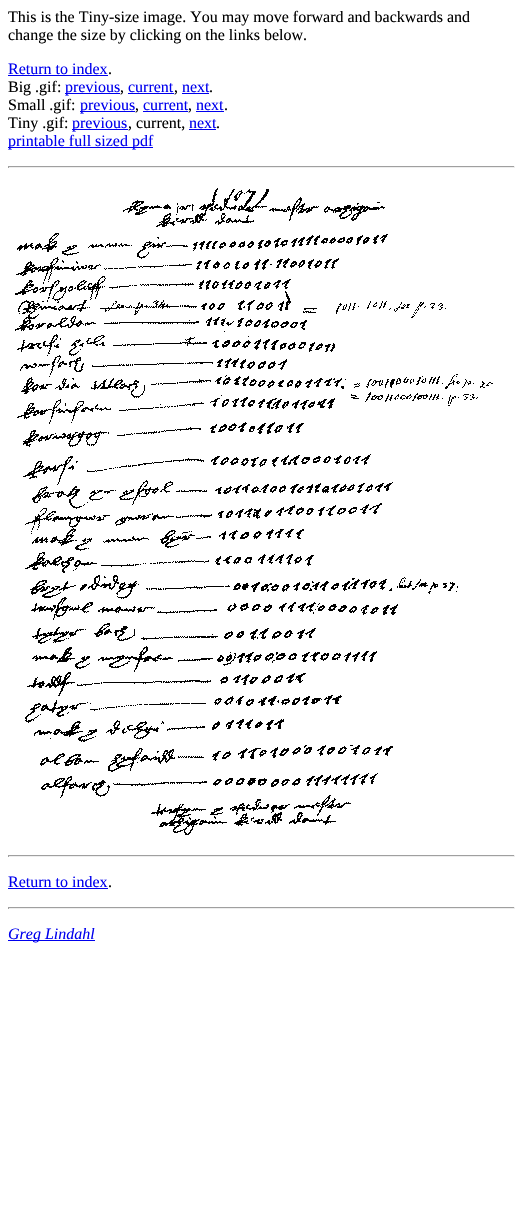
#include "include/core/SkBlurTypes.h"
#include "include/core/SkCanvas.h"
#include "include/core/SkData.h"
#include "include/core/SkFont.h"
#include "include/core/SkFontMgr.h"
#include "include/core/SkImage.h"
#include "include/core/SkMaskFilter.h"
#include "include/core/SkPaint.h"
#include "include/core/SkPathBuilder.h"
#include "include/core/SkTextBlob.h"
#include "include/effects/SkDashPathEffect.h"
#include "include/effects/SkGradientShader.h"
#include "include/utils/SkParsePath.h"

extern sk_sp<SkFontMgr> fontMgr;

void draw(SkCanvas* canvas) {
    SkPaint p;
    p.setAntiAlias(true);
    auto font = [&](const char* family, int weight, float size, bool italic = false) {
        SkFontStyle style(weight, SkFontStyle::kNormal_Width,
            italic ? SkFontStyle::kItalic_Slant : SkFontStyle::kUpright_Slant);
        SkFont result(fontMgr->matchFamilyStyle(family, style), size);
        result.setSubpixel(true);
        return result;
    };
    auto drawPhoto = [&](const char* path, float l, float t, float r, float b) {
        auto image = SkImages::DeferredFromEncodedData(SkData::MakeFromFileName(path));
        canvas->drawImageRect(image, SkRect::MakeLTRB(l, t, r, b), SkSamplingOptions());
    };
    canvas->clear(0xFFFFFFFF);
    auto font1 = font("Liberation Serif", 400, 16);
    p.setColor(0xFF000000);
    canvas->drawString("This is the Tiny-size image. You may move forward and backwards and", 8, 22, font1, p);
    canvas->drawString("change the size by clicking on the links below.", 8, 40, font1, p);
    p.setColor(0xFF0000EE);
    canvas->drawString("Return to index", 8, 74, font1, p);
    canvas->drawRect(SkRect::MakeLTRB(8, 75, 108, 76), p);
    p.setColor(0xFF000000);
    canvas->drawString(".", 108, 74, font1, p);
    canvas->drawString("Big .gif:", 8, 92, font1, p);
    p.setColor(0xFF0000EE);
    canvas->drawRect(SkRect::MakeLTRB(65, 93, 120, 94), p);
    canvas->drawString("previous", 65, 92, font1, p);
    p.setColor(0xFF000000);
    canvas->drawString(",", 120, 92, font1, p);
    p.setColor(0xFF0000EE);
    canvas->drawString("current", 128, 92, font1, p);
    canvas->drawRect(SkRect::MakeLTRB(128, 93, 174, 94), p);
    p.setColor(0xFF000000);
    canvas->drawString(",", 174, 92, font1, p);
    p.setColor(0xFF0000EE);
    canvas->drawString("next", 182, 92, font1, p);
    canvas->drawRect(SkRect::MakeLTRB(182, 93, 209, 94), p);
    p.setColor(0xFF000000);
    canvas->drawString(".", 209, 92, font1, p);
    canvas->drawString("Small .gif:", 8, 110, font1, p);
    p.setColor(0xFF0000EE);
    canvas->drawRect(SkRect::MakeLTRB(80, 111, 135, 112), p);
    canvas->drawString("previous", 80, 110, font1, p);
    p.setColor(0xFF000000);
    canvas->drawString(",", 135, 110, font1, p);
    p.setColor(0xFF0000EE);
    canvas->drawString("current", 143, 110, font1, p);
    canvas->drawRect(SkRect::MakeLTRB(143, 111, 188, 112), p);
    p.setColor(0xFF000000);
    canvas->drawString(",", 188, 110, font1, p);
    p.setColor(0xFF0000EE);
    canvas->drawString("next", 196, 110, font1, p);
    canvas->drawRect(SkRect::MakeLTRB(196, 111, 224, 112), p);
    p.setColor(0xFF000000);
    canvas->drawString(".", 224, 110, font1, p);
    canvas->drawString("Tiny .gif:", 8, 128, font1, p);
    p.setColor(0xFF0000EE);
    canvas->drawRect(SkRect::MakeLTRB(72, 129, 128, 130), p);
    canvas->drawString("previous", 72, 128, font1, p);
    p.setColor(0xFF000000);
    canvas->drawString(", current,", 128, 128, font1, p);
    p.setColor(0xFF0000EE);
    canvas->drawString("next", 189, 128, font1, p);
    canvas->drawRect(SkRect::MakeLTRB(189, 129, 216, 130), p);
    p.setColor(0xFF000000);
    canvas->drawString(".", 216, 128, font1, p);
    p.setColor(0xFF0000EE);
    canvas->drawRect(SkRect::MakeLTRB(8, 147, 153, 148), p);
    canvas->drawString("printable full sized pdf", 8, 146, font1, p);
    {
        const struct { float l, t, r, b; SkColor color; } items[] = {
            {8, 166, 515, 167, 0xFF9F9F9F},
            {514, 166, 515, 168, 0xFFEEEEEE},
            {8, 167, 515, 168, 0xFFEEEEEE},
            {8, 166, 9, 168, 0xFF9F9F9F},
        };
        for (auto [l, t, r, b, color] : items) {
            p.setColor(color);
            canvas->drawRect(SkRect::MakeLTRB(l, t, r, b), p);
        }
    }
    drawPhoto("media/1.png", 15, 188, 493, 835);
    {
        const struct { float l, t, r, b; SkColor color; } items[] = {
            {8, 855, 515, 856, 0xFF9F9F9F},
            {514, 855, 515, 857, 0xFFEEEEEE},
            {8, 856, 515, 857, 0xFFEEEEEE},
            {8, 855, 9, 857, 0xFF9F9F9F},
        };
        for (auto [l, t, r, b, color] : items) {
            p.setColor(color);
            canvas->drawRect(SkRect::MakeLTRB(l, t, r, b), p);
        }
    }
    p.setColor(0xFF0000EE);
    canvas->drawString("Return to index", 8, 887, font1, p);
    canvas->drawRect(SkRect::MakeLTRB(8, 888, 108, 889), p);
    p.setColor(0xFF000000);
    canvas->drawString(".", 108, 887, font1, p);
    {
        const struct { float l, t, r, b; SkColor color; } items[] = {
            {8, 907, 515, 908, 0xFF9F9F9F},
            {514, 907, 515, 909, 0xFFEEEEEE},
            {8, 908, 515, 909, 0xFFEEEEEE},
            {8, 907, 9, 909, 0xFF9F9F9F},
            {8, 940, 95, 941, 0xFF0000EE},
        };
        for (auto [l, t, r, b, color] : items) {
            p.setColor(color);
            canvas->drawRect(SkRect::MakeLTRB(l, t, r, b), p);
        }
    }
    auto font2 = font("Liberation Serif", 400, 16, true);
    canvas->drawString("Greg Lindahl", 8, 939, font2, p);
}
